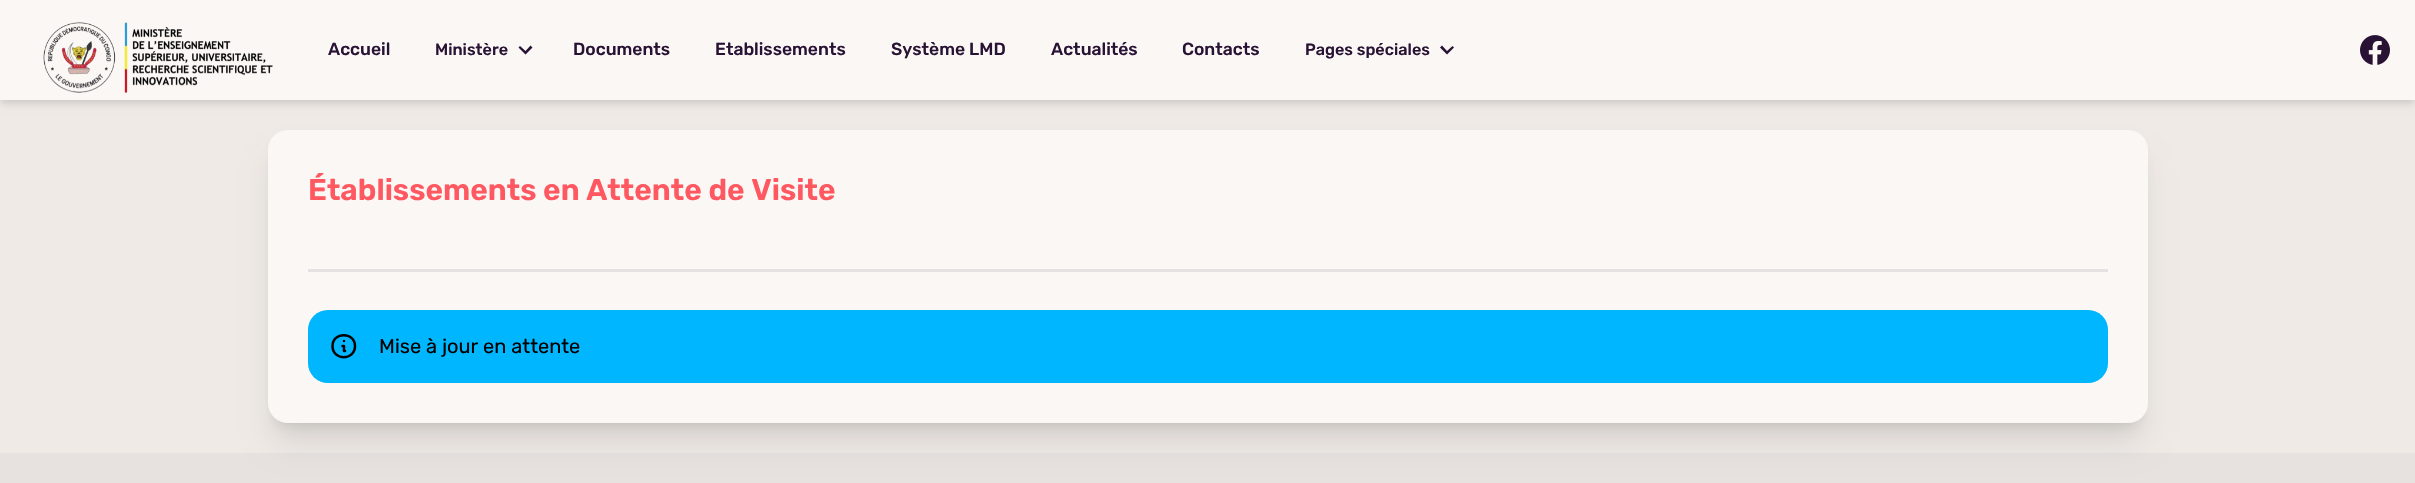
#include "include/core/SkBlurTypes.h"
#include "include/core/SkCanvas.h"
#include "include/core/SkData.h"
#include "include/core/SkFont.h"
#include "include/core/SkFontMgr.h"
#include "include/core/SkImage.h"
#include "include/core/SkMaskFilter.h"
#include "include/core/SkPaint.h"
#include "include/core/SkPathBuilder.h"
#include "include/core/SkTextBlob.h"
#include "include/effects/SkDashPathEffect.h"
#include "include/effects/SkGradientShader.h"
#include "include/utils/SkParsePath.h"

extern sk_sp<SkFontMgr> fontMgr;

void draw(SkCanvas* canvas) {
    SkPaint p;
    p.setAntiAlias(true);
    auto font = [&](const char* family, int weight, float size, bool italic = false) {
        SkFontStyle style(weight, SkFontStyle::kNormal_Width,
            italic ? SkFontStyle::kItalic_Slant : SkFontStyle::kUpright_Slant);
        SkFont result(fontMgr->matchFamilyStyle(family, style), size);
        result.setSubpixel(true);
        return result;
    };
    auto drawPhoto = [&](const char* path, float l, float t, float r, float b) {
        auto image = SkImages::DeferredFromEncodedData(SkData::MakeFromFileName(path));
        canvas->drawImageRect(image, SkRect::MakeLTRB(l, t, r, b), SkSamplingOptions());
    };
    canvas->clear(0xFFEFEAE6);
    p.setColor(0x0F000000);
    p.setMaskFilter(SkMaskFilter::MakeBlur(kNormal_SkBlurStyle, 2.5f));
    canvas->drawRect(SkRect::MakeLTRB(1, 4, 2414, 101), p);
    p.setMaskFilter(nullptr);
    p.setColor(0x1A000000);
    p.setMaskFilter(SkMaskFilter::MakeBlur(kNormal_SkBlurStyle, 4));
    canvas->drawRect(SkRect::MakeLTRB(1, 6, 2414, 104), p);
    p.setMaskFilter(nullptr);
    p.setColor(0xFFFAF7F5);
    canvas->drawRect(SkRect::MakeLTRB(0, 0, 2415, 100), p);
    drawPhoto("media/1.png", 43, 22, 273, 93);
    auto font1 = font("Rubik", 500, 17.5f);
    p.setColor(0xFF291334);
    canvas->drawString("Accueil", 328, 55, font1, p);
    auto font2 = font("Rubik", 500, 16.25f);
    canvas->drawString("Ministère", 435, 55, font2, p);
    canvas->drawPath(SkPathBuilder().moveTo(520, 46).lineTo(518.5f, 47.5f).lineTo(525.5f, 54.5f).lineTo(532.5f, 47.5f).lineTo(530.5f, 45.5f).lineTo(525.5f, 51).close().detach(), p);
    {
        const struct { const char* s; float x, y; } items[] = {
            {"Documents", 573, 55},
            {"Etablissements", 715, 55},
            {"Système LMD", 891, 55},
            {"Actualités", 1051, 55},
            {"Contacts", 1182, 55},
        };
        for (auto [s, x, y] : items) {
            canvas->drawString(s, x, y, font1, p);
        }
    }
    canvas->drawString("Pages spéciales", 1305, 55, font2, p);
    canvas->drawPath(SkPathBuilder().moveTo(1442, 45.5f).lineTo(1440, 47.5f).lineTo(1447, 54.5f).lineTo(1454, 47.5f).lineTo(1452.5f, 46).lineTo(1447, 51).close().detach(), p);
    drawPhoto("media/2.png", 2360, 35, 2390, 65);
    p.setColor(0x1A000000);
    p.setMaskFilter(SkMaskFilter::MakeBlur(kNormal_SkBlurStyle, 6));
    canvas->drawRoundRect(SkRect::MakeLTRB(275, 148, 2140, 425), 13, 13, p);
    p.setMaskFilter(nullptr);
    p.setColor(0xFFE7E2DF);
    canvas->drawRect(SkRect::MakeLTRB(0, 453, 2415, 483), p);
    p.setColor(0x1A000000);
    p.setMaskFilter(SkMaskFilter::MakeBlur(kNormal_SkBlurStyle, 15.5f));
    canvas->drawRoundRect(SkRect::MakeLTRB(274, 161, 2141, 441), 14, 14, p);
    p.setMaskFilter(nullptr);
    p.setColor(0xFFFAF7F5);
    canvas->drawRoundRect(SkRect::MakeLTRB(268, 130, 2148, 423), 20, 20, p);
    auto font3 = font("Rubik", 600, 30);
    p.setColor(0xFFFF5861);
    canvas->drawString("Établissements en Attente de Visite", 308, 200, font3, p);
    p.setColor(0xFFE5E0E2);
    canvas->drawRect(SkRect::MakeLTRB(308, 269, 2108, 272), p);
    p.setColor(0xFF00B6FF);
    canvas->drawRoundRect(SkRect::MakeLTRB(308, 310, 2108, 383), 20, 20, p);
    p.setStyle(SkPaint::kStroke_Style);
    p.setStrokeWidth(1);
    p.setColor(0x3300B6FF);
    canvas->drawRoundRect(SkRect::MakeLTRB(308.5f, 310.5f, 2107.5f, 382.5f), 19.5f, 19.5f, p);
    p.setStrokeWidth(2.5f);
    p.setStrokeCap(SkPaint::kRound_Cap);
    p.setStrokeJoin(SkPaint::kRound_Join);
    p.setColor(0xFF000000);
    canvas->drawPath(SkPathBuilder().moveTo(345, 351).lineTo(344, 351).lineTo(344, 346).lineTo(342.5f, 346).moveTo(344, 341).lineTo(344, 341).moveTo(355, 346).cubicTo(355, 361, 332.5f, 361, 332.5f, 346).cubicTo(332.5f, 331.5f, 355, 331.5f, 355, 346).close().detach(), p);
    auto font4 = font("Rubik", 400, 20);
    p.setStyle(SkPaint::kFill_Style);
    canvas->drawString("Mise à jour en attente", 379, 353, font4, p);
}
